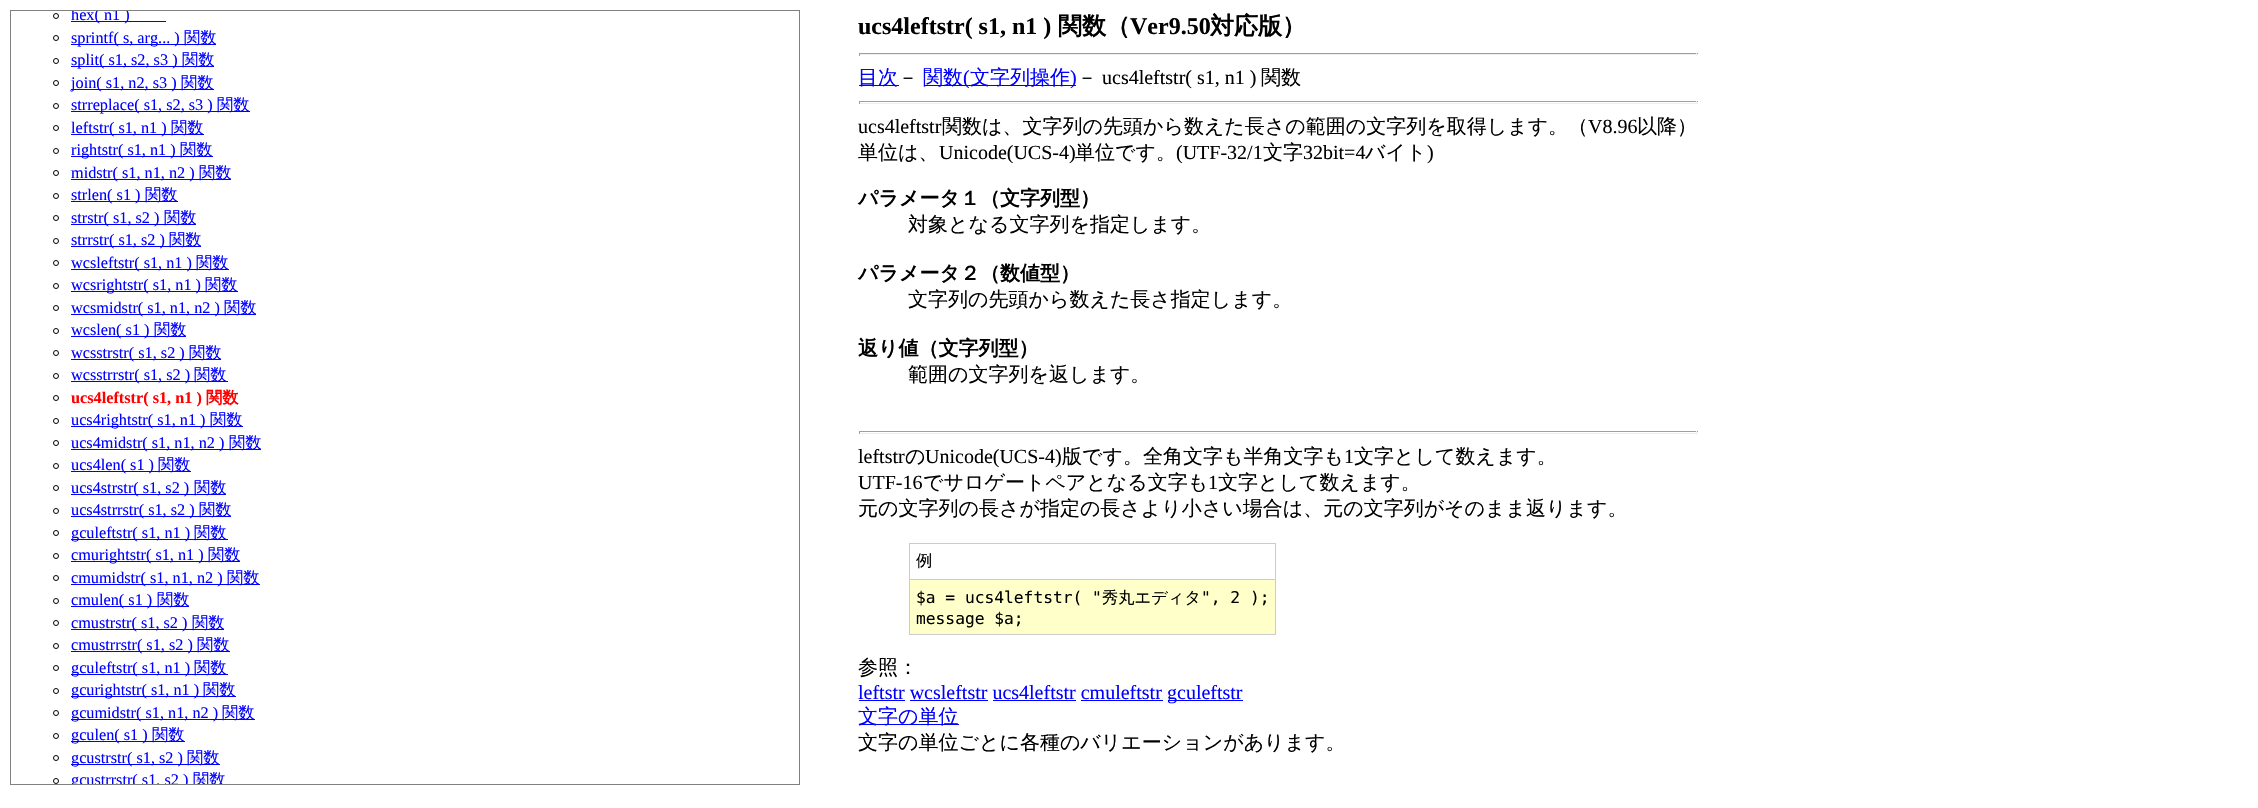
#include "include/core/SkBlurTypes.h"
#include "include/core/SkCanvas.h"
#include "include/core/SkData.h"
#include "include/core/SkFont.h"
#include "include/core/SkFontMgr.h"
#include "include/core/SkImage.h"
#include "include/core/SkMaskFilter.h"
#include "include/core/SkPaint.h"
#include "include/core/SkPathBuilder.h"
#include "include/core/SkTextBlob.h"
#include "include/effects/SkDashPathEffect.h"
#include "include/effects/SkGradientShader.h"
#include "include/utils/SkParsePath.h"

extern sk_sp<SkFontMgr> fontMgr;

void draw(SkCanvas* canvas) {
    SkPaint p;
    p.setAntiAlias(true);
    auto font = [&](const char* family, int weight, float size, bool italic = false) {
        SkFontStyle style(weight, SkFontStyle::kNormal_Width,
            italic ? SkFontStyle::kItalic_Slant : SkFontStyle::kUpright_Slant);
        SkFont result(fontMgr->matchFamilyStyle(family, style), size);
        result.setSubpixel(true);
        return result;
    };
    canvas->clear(0xFFFFFFFF);
    p.setStyle(SkPaint::kStroke_Style);
    p.setStrokeWidth(1);
    p.setColor(0xFF808080);
    canvas->drawRect(SkRect::MakeLTRB(10.5f, 10.5f, 799.5f, 784.5f), p);
    p.setColor(0xFF000000);
    canvas->drawCircle(56, 16, 2.5f, p);
    p.setStyle(SkPaint::kFill_Style);
    p.setColor(0xFF0000FF);
    canvas->drawRect(SkRect::MakeLTRB(71, 21, 166, 22), p);
    canvas->save();
    canvas->clipRect(SkRect::MakeLTRB(11, 11, 799, 784));
    auto font1 = font("Liberation Serif", 400, 16.25f);
    canvas->drawString("hex( n1 )", 71, 20, font1, p);
    canvas->restore();
    p.setStyle(SkPaint::kStroke_Style);
    p.setColor(0xFF000000);
    canvas->drawCircle(56, 38, 2.5f, p);
    p.setStyle(SkPaint::kFill_Style);
    p.setColor(0xFF0000FF);
    canvas->drawRect(SkRect::MakeLTRB(71, 44, 216, 45), p);
    canvas->drawString("sprintf( s, arg... )", 71, 43, font1, p);
    auto font2 = font("WenQuanYi Zen Hei", 500, 16.25f);
    canvas->drawString("関数", 184, 43, font2, p);
    p.setStyle(SkPaint::kStroke_Style);
    p.setColor(0xFF000000);
    canvas->drawCircle(56, 61, 2.5f, p);
    p.setStyle(SkPaint::kFill_Style);
    p.setColor(0xFF0000FF);
    canvas->drawRect(SkRect::MakeLTRB(71, 66, 214, 67), p);
    canvas->drawString("split( s1, s2, s3 )", 71, 65, font1, p);
    canvas->drawString("関数", 182, 65, font2, p);
    p.setStyle(SkPaint::kStroke_Style);
    p.setColor(0xFF000000);
    canvas->drawCircle(56, 83, 2.5f, p);
    p.setStyle(SkPaint::kFill_Style);
    p.setColor(0xFF0000FF);
    canvas->drawRect(SkRect::MakeLTRB(71, 89, 214, 90), p);
    canvas->drawString("join( s1, n2, s3 )", 71, 88, font1, p);
    canvas->drawString("関数", 181, 88, font2, p);
    p.setStyle(SkPaint::kStroke_Style);
    p.setColor(0xFF000000);
    canvas->drawCircle(56, 106, 2.5f, p);
    p.setStyle(SkPaint::kFill_Style);
    p.setColor(0xFF0000FF);
    canvas->drawRect(SkRect::MakeLTRB(71, 111, 250, 112), p);
    canvas->drawString("strreplace( s1, s2, s3 )", 71, 110, font1, p);
    canvas->drawString("関数", 217, 110, font2, p);
    p.setStyle(SkPaint::kStroke_Style);
    p.setColor(0xFF000000);
    canvas->drawCircle(56, 128, 2.5f, p);
    p.setStyle(SkPaint::kFill_Style);
    p.setColor(0xFF0000FF);
    canvas->drawRect(SkRect::MakeLTRB(71, 134, 204, 135), p);
    canvas->drawString("leftstr( s1, n1 )", 71, 133, font1, p);
    canvas->drawString("関数", 171, 133, font2, p);
    p.setStyle(SkPaint::kStroke_Style);
    p.setColor(0xFF000000);
    canvas->drawCircle(56, 151, 2.5f, p);
    p.setStyle(SkPaint::kFill_Style);
    p.setColor(0xFF0000FF);
    canvas->drawRect(SkRect::MakeLTRB(71, 156, 213, 157), p);
    canvas->drawString("rightstr( s1, n1 )", 71, 155, font1, p);
    canvas->drawString("関数", 180, 155, font2, p);
    p.setStyle(SkPaint::kStroke_Style);
    p.setColor(0xFF000000);
    canvas->drawCircle(56, 173, 2.5f, p);
    p.setStyle(SkPaint::kFill_Style);
    p.setColor(0xFF0000FF);
    canvas->drawRect(SkRect::MakeLTRB(71, 179, 231, 180), p);
    canvas->drawString("midstr( s1, n1, n2 )", 71, 178, font1, p);
    canvas->drawString("関数", 199, 178, font2, p);
    p.setStyle(SkPaint::kStroke_Style);
    p.setColor(0xFF000000);
    canvas->drawCircle(56, 196, 2.5f, p);
    p.setStyle(SkPaint::kFill_Style);
    p.setColor(0xFF0000FF);
    canvas->drawRect(SkRect::MakeLTRB(71, 201, 178, 202), p);
    canvas->drawString("strlen( s1 )", 71, 200, font1, p);
    canvas->drawString("関数", 145, 200, font2, p);
    p.setStyle(SkPaint::kStroke_Style);
    p.setColor(0xFF000000);
    canvas->drawCircle(56, 218, 2.5f, p);
    p.setStyle(SkPaint::kFill_Style);
    p.setColor(0xFF0000FF);
    canvas->drawRect(SkRect::MakeLTRB(71, 224, 196, 225), p);
    canvas->drawString("strstr( s1, s2 )", 71, 223, font1, p);
    canvas->drawString("関数", 164, 223, font2, p);
    p.setStyle(SkPaint::kStroke_Style);
    p.setColor(0xFF000000);
    canvas->drawCircle(56, 241, 2.5f, p);
    p.setStyle(SkPaint::kFill_Style);
    p.setColor(0xFF0000FF);
    canvas->drawRect(SkRect::MakeLTRB(71, 246, 201, 247), p);
    canvas->drawString("strrstr( s1, s2 )", 71, 245, font1, p);
    canvas->drawString("関数", 169, 245, font2, p);
    p.setStyle(SkPaint::kStroke_Style);
    p.setColor(0xFF000000);
    canvas->drawCircle(56, 263, 2.5f, p);
    p.setStyle(SkPaint::kFill_Style);
    p.setColor(0xFF0000FF);
    canvas->drawRect(SkRect::MakeLTRB(71, 269, 229, 270), p);
    canvas->drawString("wcsleftstr( s1, n1 )", 71, 268, font1, p);
    canvas->drawString("関数", 196, 268, font2, p);
    p.setStyle(SkPaint::kStroke_Style);
    p.setColor(0xFF000000);
    canvas->drawCircle(56, 286, 2.5f, p);
    p.setStyle(SkPaint::kFill_Style);
    p.setColor(0xFF0000FF);
    canvas->drawRect(SkRect::MakeLTRB(71, 291, 238, 292), p);
    canvas->drawString("wcsrightstr( s1, n1 )", 71, 290, font1, p);
    canvas->drawString("関数", 205, 290, font2, p);
    p.setStyle(SkPaint::kStroke_Style);
    p.setColor(0xFF000000);
    canvas->drawCircle(56, 308, 2.5f, p);
    p.setStyle(SkPaint::kFill_Style);
    p.setColor(0xFF0000FF);
    canvas->drawRect(SkRect::MakeLTRB(71, 314, 256, 315), p);
    canvas->drawString("wcsmidstr( s1, n1, n2 )", 71, 313, font1, p);
    canvas->drawString("関数", 224, 313, font2, p);
    p.setStyle(SkPaint::kStroke_Style);
    p.setColor(0xFF000000);
    canvas->drawCircle(56, 331, 2.5f, p);
    p.setStyle(SkPaint::kFill_Style);
    p.setColor(0xFF0000FF);
    canvas->drawRect(SkRect::MakeLTRB(71, 336, 186, 337), p);
    canvas->drawString("wcslen( s1 )", 71, 335, font1, p);
    canvas->drawString("関数", 154, 335, font2, p);
    p.setStyle(SkPaint::kStroke_Style);
    p.setColor(0xFF000000);
    canvas->drawCircle(56, 353, 2.5f, p);
    p.setStyle(SkPaint::kFill_Style);
    p.setColor(0xFF0000FF);
    canvas->drawRect(SkRect::MakeLTRB(71, 359, 221, 360), p);
    canvas->drawString("wcsstrstr( s1, s2 )", 71, 358, font1, p);
    canvas->drawString("関数", 189, 358, font2, p);
    p.setStyle(SkPaint::kStroke_Style);
    p.setColor(0xFF000000);
    canvas->drawCircle(56, 376, 2.5f, p);
    p.setStyle(SkPaint::kFill_Style);
    p.setColor(0xFF0000FF);
    canvas->drawRect(SkRect::MakeLTRB(71, 381, 228, 382), p);
    canvas->drawString("wcsstrrstr( s1, s2 )", 71, 380, font1, p);
    canvas->drawString("関数", 194, 380, font2, p);
    p.setStyle(SkPaint::kStroke_Style);
    p.setColor(0xFF000000);
    canvas->drawCircle(56, 398, 2.5f, p);
    auto font3 = font("Liberation Serif", 700, 16.25f);
    p.setStyle(SkPaint::kFill_Style);
    p.setColor(0xFFFF0000);
    canvas->drawString("ucs4leftstr( s1, n1 )", 71, 403, font3, p);
    auto font4 = font("WenQuanYi Zen Hei", 700, 16.25f);
    canvas->drawString("関数", 206, 403, font4, p);
    p.setStyle(SkPaint::kStroke_Style);
    p.setColor(0xFF000000);
    canvas->drawCircle(56, 421, 2.5f, p);
    p.setStyle(SkPaint::kFill_Style);
    p.setColor(0xFF0000FF);
    canvas->drawRect(SkRect::MakeLTRB(71, 426, 243, 427), p);
    canvas->drawString("ucs4rightstr( s1, n1 )", 71, 425, font1, p);
    canvas->drawString("関数", 210, 425, font2, p);
    p.setStyle(SkPaint::kStroke_Style);
    p.setColor(0xFF000000);
    canvas->drawCircle(56, 443, 2.5f, p);
    p.setStyle(SkPaint::kFill_Style);
    p.setColor(0xFF0000FF);
    canvas->drawRect(SkRect::MakeLTRB(71, 449, 261, 450), p);
    canvas->drawString("ucs4midstr( s1, n1, n2 )", 71, 448, font1, p);
    canvas->drawString("関数", 229, 448, font2, p);
    p.setStyle(SkPaint::kStroke_Style);
    p.setColor(0xFF000000);
    canvas->drawCircle(56, 466, 2.5f, p);
    p.setStyle(SkPaint::kFill_Style);
    p.setColor(0xFF0000FF);
    canvas->drawRect(SkRect::MakeLTRB(71, 471, 191, 472), p);
    canvas->drawString("ucs4len( s1 )", 71, 470, font1, p);
    canvas->drawString("関数", 158, 470, font2, p);
    p.setStyle(SkPaint::kStroke_Style);
    p.setColor(0xFF000000);
    canvas->drawCircle(56, 488, 2.5f, p);
    p.setStyle(SkPaint::kFill_Style);
    p.setColor(0xFF0000FF);
    canvas->drawRect(SkRect::MakeLTRB(71, 494, 226, 495), p);
    canvas->drawString("ucs4strstr( s1, s2 )", 71, 493, font1, p);
    canvas->drawString("関数", 194, 493, font2, p);
    p.setStyle(SkPaint::kStroke_Style);
    p.setColor(0xFF000000);
    canvas->drawCircle(56, 511, 2.5f, p);
    p.setStyle(SkPaint::kFill_Style);
    p.setColor(0xFF0000FF);
    canvas->drawRect(SkRect::MakeLTRB(71, 516, 231, 517), p);
    canvas->drawString("ucs4strrstr( s1, s2 )", 71, 515, font1, p);
    canvas->drawString("関数", 199, 515, font2, p);
    p.setStyle(SkPaint::kStroke_Style);
    p.setColor(0xFF000000);
    canvas->drawCircle(56, 533, 2.5f, p);
    p.setStyle(SkPaint::kFill_Style);
    p.setColor(0xFF0000FF);
    canvas->drawRect(SkRect::MakeLTRB(71, 539, 228, 540), p);
    canvas->drawString("gculeftstr( s1, n1 )", 71, 538, font1, p);
    canvas->drawString("関数", 194, 538, font2, p);
    p.setStyle(SkPaint::kStroke_Style);
    p.setColor(0xFF000000);
    canvas->drawCircle(56, 556, 2.5f, p);
    p.setStyle(SkPaint::kFill_Style);
    p.setColor(0xFF0000FF);
    canvas->drawRect(SkRect::MakeLTRB(71, 561, 240, 562), p);
    canvas->drawString("cmurightstr( s1, n1 )", 71, 560, font1, p);
    canvas->drawString("関数", 208, 560, font2, p);
    p.setStyle(SkPaint::kStroke_Style);
    p.setColor(0xFF000000);
    canvas->drawCircle(56, 578, 2.5f, p);
    p.setStyle(SkPaint::kFill_Style);
    p.setColor(0xFF0000FF);
    canvas->drawRect(SkRect::MakeLTRB(71, 584, 260, 585), p);
    canvas->drawString("cmumidstr( s1, n1, n2 )", 71, 583, font1, p);
    canvas->drawString("関数", 227, 583, font2, p);
    p.setStyle(SkPaint::kStroke_Style);
    p.setColor(0xFF000000);
    canvas->drawCircle(56, 601, 2.5f, p);
    p.setStyle(SkPaint::kFill_Style);
    p.setColor(0xFF0000FF);
    canvas->drawRect(SkRect::MakeLTRB(71, 606, 189, 607), p);
    canvas->drawString("cmulen( s1 )", 71, 605, font1, p);
    canvas->drawString("関数", 157, 605, font2, p);
    p.setStyle(SkPaint::kStroke_Style);
    p.setColor(0xFF000000);
    canvas->drawCircle(56, 623, 2.5f, p);
    p.setStyle(SkPaint::kFill_Style);
    p.setColor(0xFF0000FF);
    canvas->drawRect(SkRect::MakeLTRB(71, 629, 224, 630), p);
    canvas->drawString("cmustrstr( s1, s2 )", 71, 628, font1, p);
    canvas->drawString("関数", 192, 628, font2, p);
    p.setStyle(SkPaint::kStroke_Style);
    p.setColor(0xFF000000);
    canvas->drawCircle(56, 646, 2.5f, p);
    p.setStyle(SkPaint::kFill_Style);
    p.setColor(0xFF0000FF);
    canvas->drawRect(SkRect::MakeLTRB(71, 651, 230, 652), p);
    canvas->drawString("cmustrrstr( s1, s2 )", 71, 650, font1, p);
    canvas->drawString("関数", 197, 650, font2, p);
    p.setStyle(SkPaint::kStroke_Style);
    p.setColor(0xFF000000);
    canvas->drawCircle(56, 668, 2.5f, p);
    p.setStyle(SkPaint::kFill_Style);
    p.setColor(0xFF0000FF);
    canvas->drawRect(SkRect::MakeLTRB(71, 674, 228, 675), p);
    canvas->drawString("gculeftstr( s1, n1 )", 71, 673, font1, p);
    canvas->drawString("関数", 194, 673, font2, p);
    p.setStyle(SkPaint::kStroke_Style);
    p.setColor(0xFF000000);
    canvas->drawCircle(56, 691, 2.5f, p);
    p.setStyle(SkPaint::kFill_Style);
    p.setColor(0xFF0000FF);
    canvas->drawRect(SkRect::MakeLTRB(71, 696, 236, 697), p);
    canvas->drawString("gcurightstr( s1, n1 )", 71, 695, font1, p);
    canvas->drawString("関数", 203, 695, font2, p);
    p.setStyle(SkPaint::kStroke_Style);
    p.setColor(0xFF000000);
    canvas->drawCircle(56, 713, 2.5f, p);
    p.setStyle(SkPaint::kFill_Style);
    p.setColor(0xFF0000FF);
    canvas->drawRect(SkRect::MakeLTRB(71, 719, 255, 720), p);
    canvas->drawString("gcumidstr( s1, n1, n2 )", 71, 718, font1, p);
    canvas->drawString("関数", 222, 718, font2, p);
    p.setStyle(SkPaint::kStroke_Style);
    p.setColor(0xFF000000);
    canvas->drawCircle(56, 736, 2.5f, p);
    p.setStyle(SkPaint::kFill_Style);
    p.setColor(0xFF0000FF);
    canvas->drawRect(SkRect::MakeLTRB(71, 741, 185, 742), p);
    canvas->drawString("gculen( s1 )", 71, 740, font1, p);
    canvas->drawString("関数", 152, 740, font2, p);
    p.setStyle(SkPaint::kStroke_Style);
    p.setColor(0xFF000000);
    canvas->drawCircle(56, 758, 2.5f, p);
    p.setStyle(SkPaint::kFill_Style);
    p.setColor(0xFF0000FF);
    canvas->drawRect(SkRect::MakeLTRB(71, 764, 220, 765), p);
    canvas->drawString("gcustrstr( s1, s2 )", 71, 763, font1, p);
    canvas->drawString("関数", 187, 763, font2, p);
    p.setStyle(SkPaint::kStroke_Style);
    p.setColor(0xFF000000);
    canvas->drawCircle(56, 781, 2.5f, p);
    canvas->save();
    canvas->clipRect(SkRect::MakeLTRB(11, 11, 799, 784));
    p.setStyle(SkPaint::kFill_Style);
    p.setColor(0xFF0000FF);
    canvas->drawString("gcustrrstr( s1, s2 )", 71, 785, font1, p);
    canvas->drawString("関数", 193, 785, font2, p);
    canvas->restore();
    auto font5 = font("Liberation Serif", 700, 24);
    p.setColor(0xFF000000);
    canvas->drawString("ucs4leftstr( s1, n1 )", 858, 34, font5, p);
    auto font6 = font("WenQuanYi Zen Hei", 700, 24);
    canvas->drawString("関数（", 1058, 34, font6, p);
    canvas->drawString("Ver9.50", 1130, 34, font5, p);
    canvas->drawString("対応版）", 1210, 34, font6, p);
    {
        const struct { float l, t, r, b; SkColor color; } items[] = {
            {859, 53, 1698, 54, 0xFF9F9F9F},
            {1696, 53, 1697, 56, 0xFFEEEEEE},
            {859, 54, 1698, 55, 0xFFEEEEEE},
            {859, 53, 860, 56, 0xFF9F9F9F},
            {859, 85, 899, 86, 0xFF0000FF},
        };
        for (auto [l, t, r, b, color] : items) {
            p.setColor(color);
            canvas->drawRect(SkRect::MakeLTRB(l, t, r, b), p);
        }
    }
    auto font7 = font("WenQuanYi Zen Hei", 500, 20);
    canvas->drawString("目次", 858, 84, font7, p);
    p.setColor(0xFF000000);
    canvas->drawString("－", 898, 84, font7, p);
    p.setColor(0xFF0000FF);
    canvas->drawRect(SkRect::MakeLTRB(924, 85, 1076, 86), p);
    canvas->drawString("関数", 923, 84, font7, p);
    auto font8 = font("Liberation Serif", 400, 20);
    canvas->drawString("(", 963, 84, font8, p);
    canvas->drawString("文字列操作", 970, 84, font7, p);
    canvas->drawString(")", 1070, 84, font8, p);
    p.setColor(0xFF000000);
    canvas->drawString("－", 1077, 84, font7, p);
    canvas->drawString("ucs4leftstr( s1, n1 )", 1102, 84, font8, p);
    canvas->drawString("関数", 1261, 84, font7, p);
    {
        const struct { float l, t, r, b; SkColor color; } items[] = {
            {859, 101, 1698, 102, 0xFF9F9F9F},
            {1696, 101, 1697, 104, 0xFFEEEEEE},
            {859, 103, 1698, 104, 0xFFEEEEEE},
            {859, 101, 860, 104, 0xFF9F9F9F},
        };
        for (auto [l, t, r, b, color] : items) {
            p.setColor(color);
            canvas->drawRect(SkRect::MakeLTRB(l, t, r, b), p);
        }
    }
    p.setColor(0xFF000000);
    canvas->drawString("ucs4leftstr", 858, 133, font8, p);
    canvas->drawString("関数は、文字列の先頭から数えた長さの範囲の文字列を取得します。（", 942, 133, font7, p);
    canvas->drawString("V8.96", 1588, 133, font8, p);
    canvas->drawString("以降）", 1637, 133, font7, p);
    canvas->drawString("単位は、", 858, 159, font7, p);
    canvas->drawString("Unicode(UCS-4)", 939, 159, font8, p);
    canvas->drawString("単位です。", 1075, 159, font7, p);
    canvas->drawString("(UTF-32/1", 1176, 159, font8, p);
    canvas->drawString("文字", 1263, 159, font7, p);
    canvas->drawString("32bit=4", 1303, 159, font8, p);
    canvas->drawString("バイト", 1365, 159, font7, p);
    canvas->drawString(")", 1427, 159, font8, p);
    auto font9 = font("WenQuanYi Zen Hei", 700, 20);
    canvas->drawString("パラメータ１（文字列型）", 858, 205, font9, p);
    canvas->drawString("対象となる文字列を指定します。", 908, 231, font7, p);
    canvas->drawString("パラメータ２（数値型）", 858, 280, font9, p);
    canvas->drawString("文字列の先頭から数えた長さ指定します。", 908, 306, font7, p);
    canvas->drawString("返り値（文字列型）", 858, 355, font9, p);
    canvas->drawString("範囲の文字列を返します。", 908, 381, font7, p);
    {
        const struct { float l, t, r, b; SkColor color; } items[] = {
            {859, 431, 1698, 432, 0xFF9F9F9F},
            {1696, 431, 1697, 434, 0xFFEEEEEE},
            {859, 433, 1698, 434, 0xFFEEEEEE},
            {859, 431, 860, 434, 0xFF9F9F9F},
        };
        for (auto [l, t, r, b, color] : items) {
            p.setColor(color);
            canvas->drawRect(SkRect::MakeLTRB(l, t, r, b), p);
        }
    }
    p.setColor(0xFF000000);
    canvas->drawString("leftstr", 858, 463, font8, p);
    canvas->drawString("の", 905, 463, font7, p);
    canvas->drawString("Unicode(UCS-4)", 925, 463, font8, p);
    canvas->drawString("版です。全角文字も半角文字も", 1062, 463, font7, p);
    canvas->drawString("1", 1344, 463, font8, p);
    canvas->drawString("文字として数えます。", 1354, 463, font7, p);
    canvas->drawString("UTF-16", 858, 489, font8, p);
    canvas->drawString("でサロゲートペアとなる文字も", 923, 489, font7, p);
    canvas->drawString("1", 1208, 489, font8, p);
    canvas->drawString("文字として数えます。", 1218, 489, font7, p);
    canvas->drawString("元の文字列の長さが指定の長さより小さい場合は、元の文字列がそのまま返ります。", 858, 515, font7, p);
    {
        const struct { float l, t, r, b; SkColor color; } items[] = {
            {909, 543, 1276, 544, 0xFFCCCCCC},
            {1275, 543, 1276, 635, 0xFFCCCCCC},
            {909, 634, 1276, 635, 0xFFCCCCCC},
            {909, 543, 910, 635, 0xFFCCCCCC},
        };
        for (auto [l, t, r, b, color] : items) {
            p.setColor(color);
            canvas->drawRect(SkRect::MakeLTRB(l, t, r, b), p);
        }
    }
    p.setColor(0xFF000000);
    canvas->drawString("例", 916, 566, font2, p);
    p.setColor(0xFFFFFFCA);
    canvas->drawRect(SkRect::MakeLTRB(910, 580, 1275, 634), p);
    p.setColor(0xFFCCCCCC);
    canvas->drawRect(SkRect::MakeLTRB(909, 579, 1276, 580), p);
    auto font10 = font("DejaVu Sans Mono", 400, 16.25f);
    p.setColor(0xFF000000);
    canvas->drawString("$a = ucs4leftstr( \"", 916, 603, font10, p);
    canvas->drawString("秀丸エディタ", 1102, 603, font2, p);
    canvas->drawString("\", 2 );", 1201, 603, font10, p);
    canvas->drawString("message $a;", 916, 624, font10, p);
    canvas->drawString("参照：", 858, 674, font7, p);
    p.setColor(0xFF0000FF);
    canvas->drawString("leftstr wcsleftstr ucs4leftstr cmuleftstr", 858, 699, font8, p);
    canvas->drawRect(SkRect::MakeLTRB(859, 700, 905, 701), p);
    canvas->drawRect(SkRect::MakeLTRB(1168, 700, 1243, 701), p);
    canvas->drawString("gculeftstr", 1167, 699, font8, p);
    {
        const struct { float l, t, r, b; SkColor color; } items[] = {
            {910, 700, 988, 701, 0xFF0000FF},
            {993, 700, 1076, 701, 0xFF0000FF},
            {1081, 700, 1163, 701, 0xFF0000FF},
            {859, 724, 959, 725, 0xFF0000FF},
        };
        for (auto [l, t, r, b, color] : items) {
            p.setColor(color);
            canvas->drawRect(SkRect::MakeLTRB(l, t, r, b), p);
        }
    }
    canvas->drawString("文字の単位", 858, 723, font7, p);
    p.setColor(0xFF000000);
    canvas->drawString("文字の単位ごとに各種のバリエーションがあります。", 858, 749, font7, p);
}
